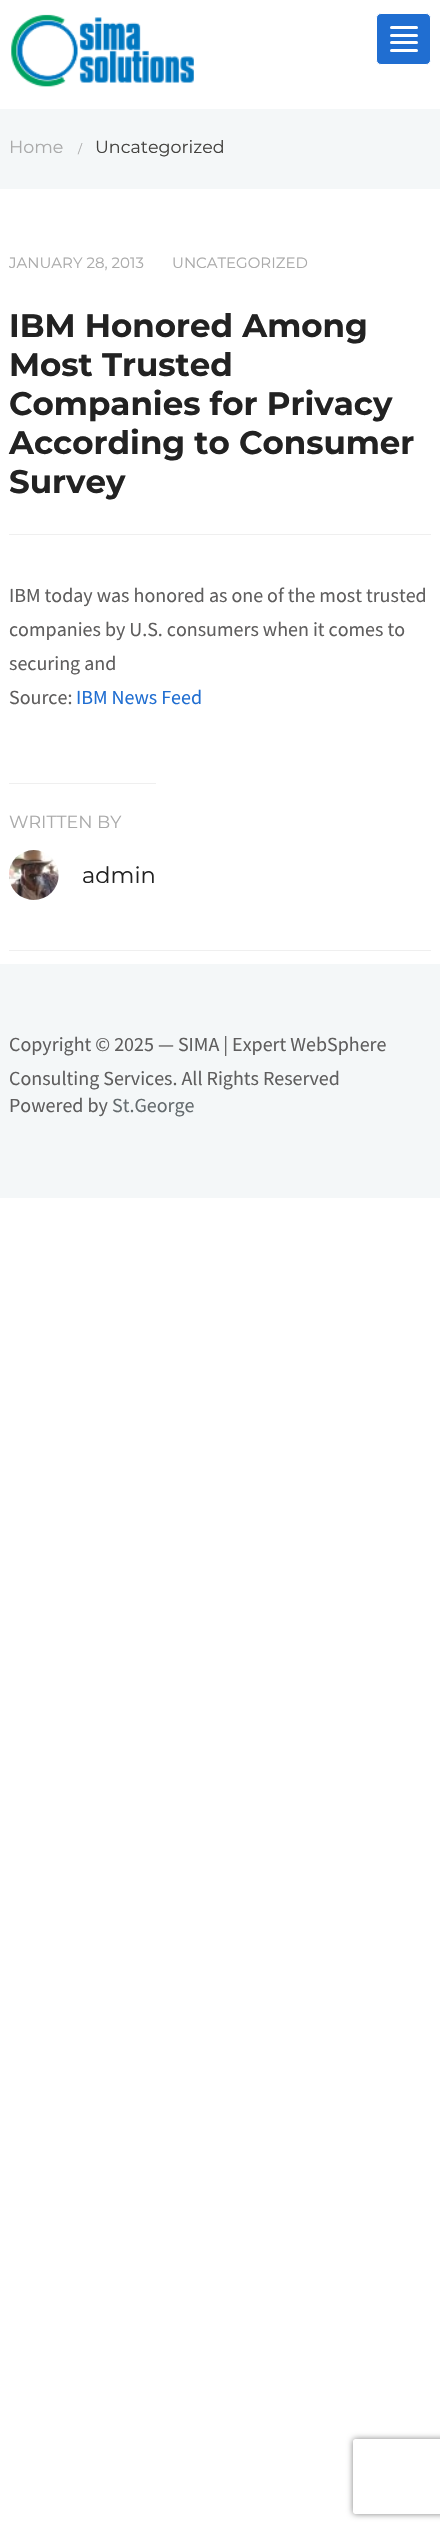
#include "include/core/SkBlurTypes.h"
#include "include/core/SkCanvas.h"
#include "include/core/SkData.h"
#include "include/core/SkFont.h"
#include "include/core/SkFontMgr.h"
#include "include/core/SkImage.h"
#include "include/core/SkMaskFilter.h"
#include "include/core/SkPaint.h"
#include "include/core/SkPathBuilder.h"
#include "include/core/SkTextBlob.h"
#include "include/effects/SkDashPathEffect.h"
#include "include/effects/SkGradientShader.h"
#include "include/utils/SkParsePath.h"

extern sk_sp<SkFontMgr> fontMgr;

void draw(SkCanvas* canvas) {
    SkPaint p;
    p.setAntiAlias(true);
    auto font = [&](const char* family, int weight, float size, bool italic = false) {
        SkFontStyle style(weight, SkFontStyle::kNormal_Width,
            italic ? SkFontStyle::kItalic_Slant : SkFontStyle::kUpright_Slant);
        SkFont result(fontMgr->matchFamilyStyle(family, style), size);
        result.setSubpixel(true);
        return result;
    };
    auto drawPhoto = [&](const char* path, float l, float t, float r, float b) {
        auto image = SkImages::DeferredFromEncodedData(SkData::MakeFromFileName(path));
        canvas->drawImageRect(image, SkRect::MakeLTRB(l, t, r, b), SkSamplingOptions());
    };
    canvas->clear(0xFFFFFFFF);
    drawPhoto("media/1.png", 11, 14, 194, 87);
    p.setColor(0xFF206ED1);
    canvas->drawRoundRect(SkRect::MakeLTRB(376.5f, 13.5f, 430.5f, 64.5f), 4.5f, 4.5f, p);
    p.setStyle(SkPaint::kStroke_Style);
    p.setStrokeWidth(1);
    p.setColor(0xFFFFFFFF);
    canvas->drawRoundRect(SkRect::MakeLTRB(376.5f, 13.5f, 430.5f, 64.5f), 4.5f, 4.5f, p);
    p.setStyle(SkPaint::kFill_Style);
    canvas->drawRoundRect(SkRect::MakeLTRB(390, 26, 418, 29), 1.5f, 1.5f, p);
    canvas->drawRoundRect(SkRect::MakeLTRB(390, 34, 418, 37), 1.5f, 1.5f, p);
    canvas->drawRoundRect(SkRect::MakeLTRB(390, 41, 418, 44), 1.5f, 1.5f, p);
    canvas->drawRoundRect(SkRect::MakeLTRB(390, 49, 418, 52), 1.5f, 1.5f, p);
    p.setColor(0xFFF4F7F8);
    canvas->drawRect(SkRect::MakeLTRB(0, 109, 440, 189), p);
    auto font1 = font("Montserrat", 400, 17.5f);
    p.setColor(0xFFAAAAAA);
    canvas->drawString("Home", 9, 153, font1, p);
    auto font2 = font("Montserrat", 400, 12);
    canvas->drawString("/", 78, 153, font2, p);
    p.setColor(0xFF42413E);
    canvas->drawString("Uncategorized", 95, 153, font1, p);
    auto font3 = font("Montserrat", 400, 15);
    p.setColor(0xFFAAAAAA);
    canvas->drawString("JANUARY 28, 2013", 9, 268, font3, p);
    canvas->drawString("UNCATEGORIZED", 172, 268, font3, p);
    p.setColor(0xFFEFEFEF);
    canvas->drawRect(SkRect::MakeLTRB(9, 534, 431, 535), p);
    auto font4 = font("Montserrat", 700, 32.5f);
    p.setColor(0xFF222222);
    {
        const struct { const char* s; float x, y; } items[] = {
            {"IBM Honored Among", 9, 337},
            {"Most Trusted", 9, 376},
            {"Companies for Privacy", 9, 415},
            {"According to Consumer", 9, 454},
            {"Survey", 9, 493},
        };
        for (auto [s, x, y] : items) {
            canvas->drawString(s, x, y, font4, p);
        }
    }
    auto font5 = font("Source Sans Pro", 400, 20);
    p.setColor(0xFF5F5E5E);
    {
        const struct { const char* s; float x, y; } items[] = {
            {"IBM today was honored as one of the most trusted", 9, 602},
            {"companies by U.S. consumers when it comes to", 9, 636},
            {"securing and", 9, 670},
            {"Source:", 9, 704},
        };
        for (auto [s, x, y] : items) {
            canvas->drawString(s, x, y, font5, p);
        }
    }
    p.setColor(0xFF206ED1);
    canvas->drawString("IBM News Feed", 76, 704, font5, p);
    p.setColor(0xFFEFEFEF);
    canvas->drawRect(SkRect::MakeLTRB(9, 783, 156, 784), p);
    p.setColor(0xFFAAAAAA);
    canvas->drawString("WRITTEN BY", 9, 828, font1, p);
    drawPhoto("media/2.png", 9, 850, 59, 900);
    auto font6 = font("Montserrat", 400, 22.5f);
    p.setColor(0xFF222222);
    canvas->drawString("admin", 82, 883, font6, p);
    p.setColor(0xFFEFEFEF);
    canvas->drawRect(SkRect::MakeLTRB(9, 950, 431, 951), p);
    p.setColor(0xFFF4F7F8);
    canvas->drawRect(SkRect::MakeLTRB(0, 964, 440, 1198), p);
    p.setColor(0xFF5F5E5E);
    {
        const struct { const char* s; float x, y; } items[] = {
            {"Copyright © 2025 — SIMA | Expert WebSphere", 9, 1051},
            {"Consulting Services. All Rights Reserved", 9, 1085},
            {"Powered by", 9, 1112},
        };
        for (auto [s, x, y] : items) {
            canvas->drawString(s, x, y, font5, p);
        }
    }
    p.setColor(0xFF646B6E);
    canvas->drawString("St.George", 112, 1112, font5, p);
    canvas->save();
    canvas->clipPath(SkPathBuilder(SkPathFillType::kEvenOdd).moveTo(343, 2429).lineTo(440, 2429).lineTo(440, 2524).lineTo(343, 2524).close().moveTo(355.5f, 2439).lineTo(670.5f, 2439).cubicTo(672, 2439, 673, 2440, 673, 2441.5f).lineTo(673, 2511.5f).cubicTo(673, 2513, 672, 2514, 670.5f, 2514).lineTo(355.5f, 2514).cubicTo(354, 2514, 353, 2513, 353, 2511.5f).lineTo(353, 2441.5f).cubicTo(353, 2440, 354, 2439, 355.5f, 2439).close().detach(), true);
    p.setColor(0xFF808080);
    p.setMaskFilter(SkMaskFilter::MakeBlur(kNormal_SkBlurStyle, 3));
    canvas->drawRoundRect(SkRect::MakeLTRB(353, 2439, 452, 2514), 2.5f, 2.5f, p);
    p.setMaskFilter(nullptr);
    canvas->restore();
}
